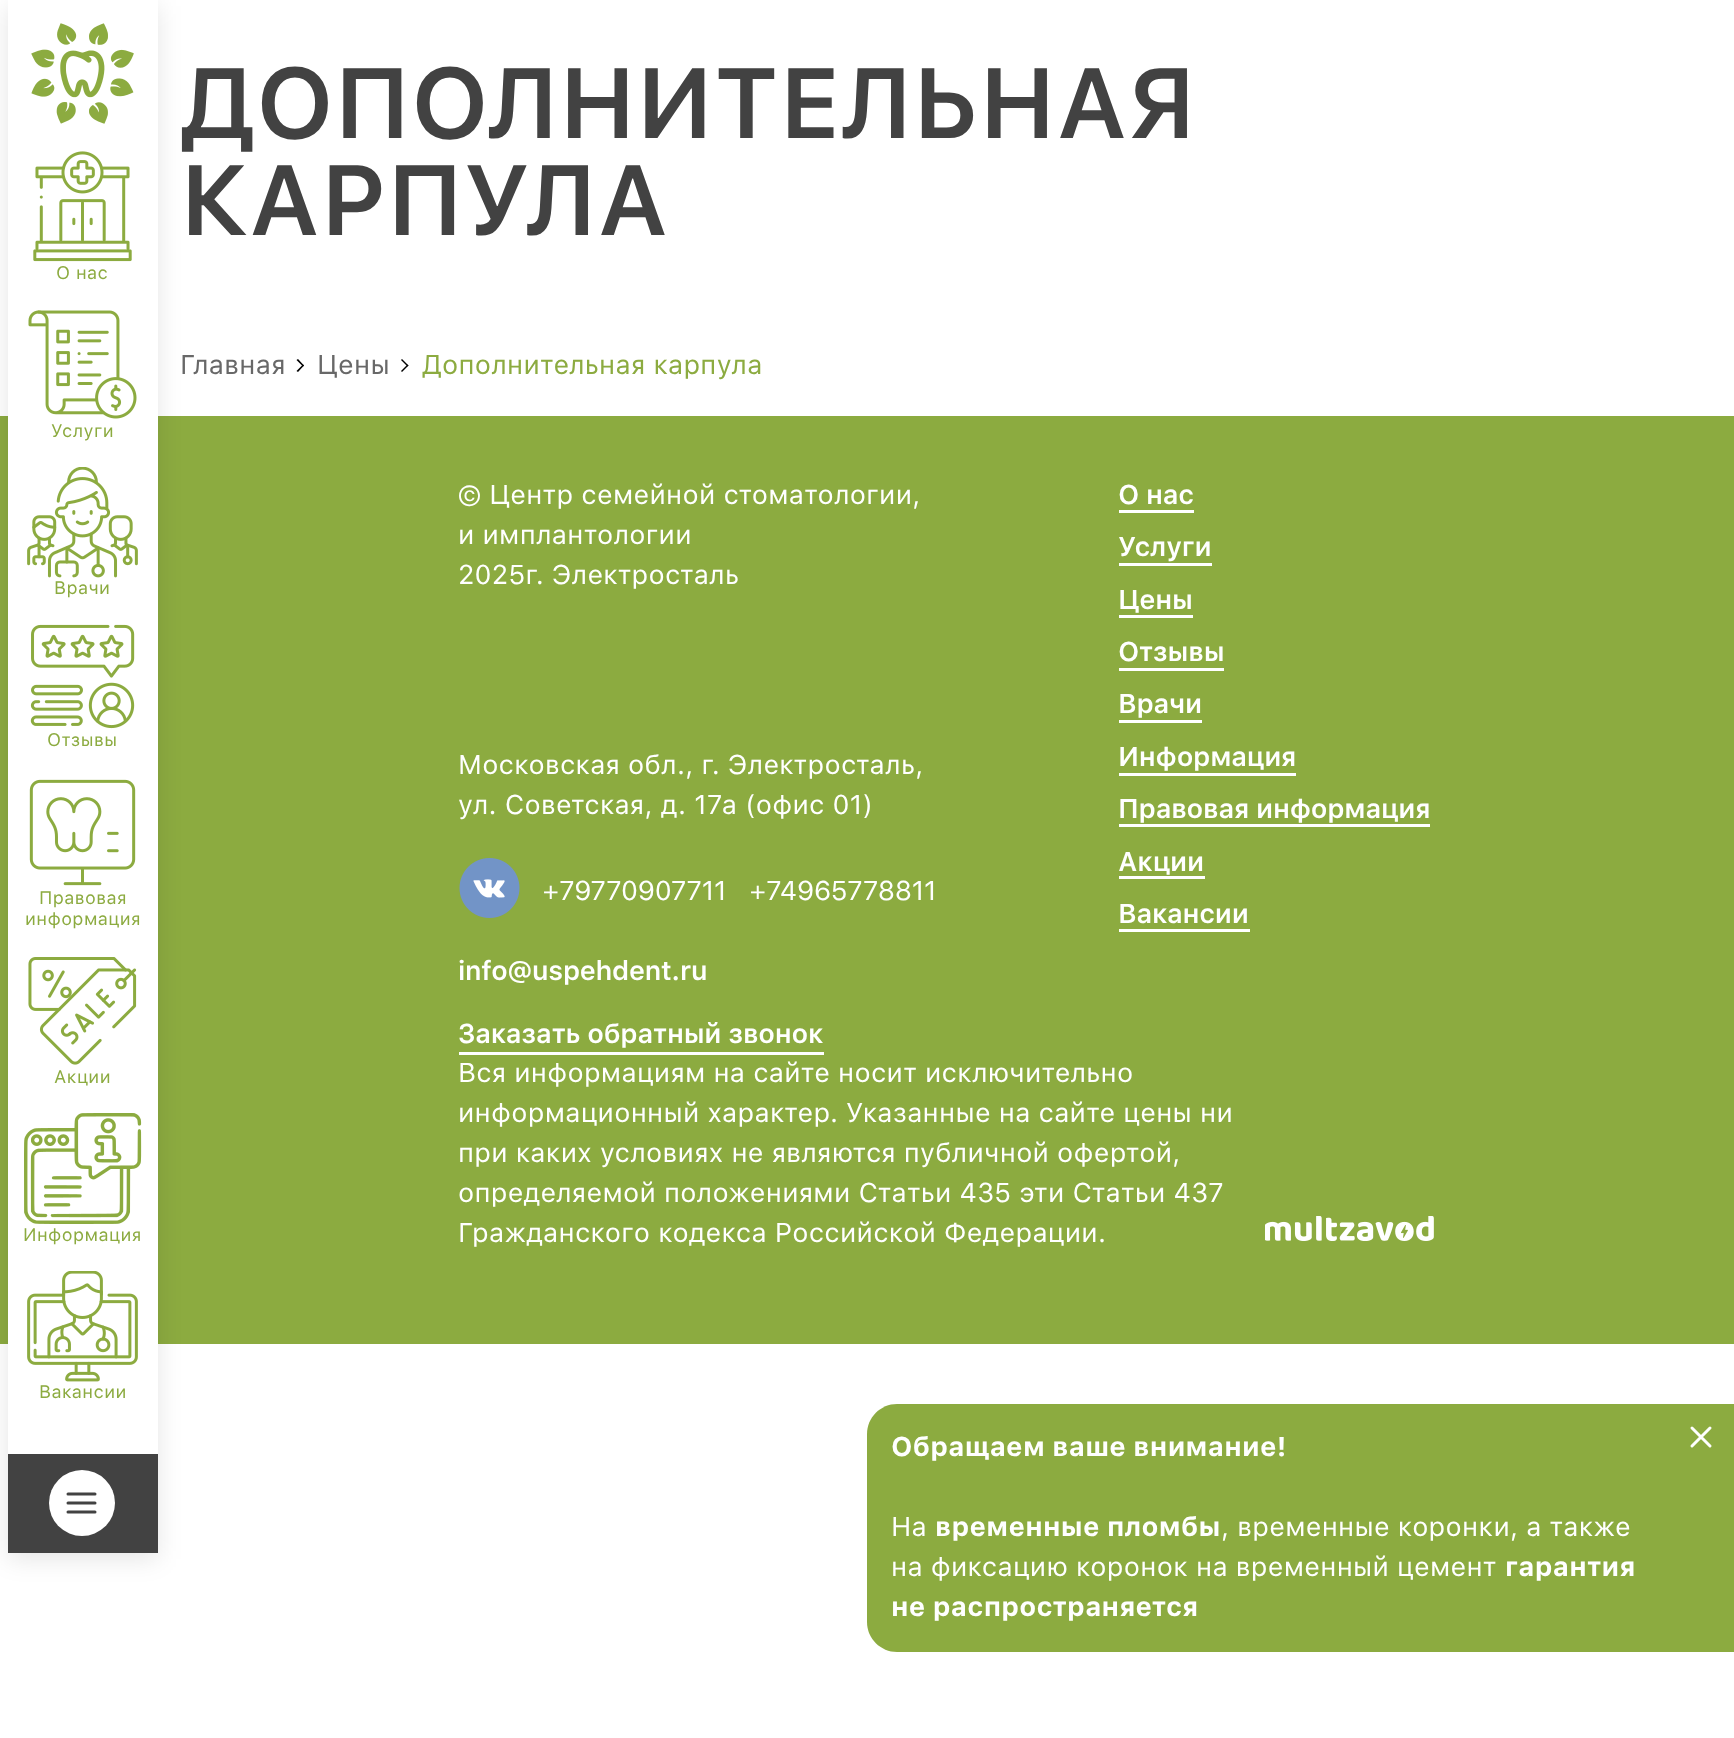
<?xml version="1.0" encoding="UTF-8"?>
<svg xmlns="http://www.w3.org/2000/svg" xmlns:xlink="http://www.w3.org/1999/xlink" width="1734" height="1738">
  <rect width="100%" height="100%" fill="#ffffff" />
  <rect y="416" width="1734" height="928" fill="#8cab40" />
  <rect x="8" y="6" width="150" height="1553" fill="#000000" fill-opacity="0.1" filter="blur(12px)" />
  <rect x="8" width="150" height="1454" fill="#ffffff" />
  <image x="31" y="23" width="103" height="101" xlink:href="image1.png" />
  <image x="33" y="151" width="99" height="111" xlink:href="image2.png" />
  <image x="28" y="310" width="109" height="109" xlink:href="image3.png" />
  <image x="27" y="467" width="111" height="111" xlink:href="image4.png" />
  <image x="30" y="624" width="105" height="105" xlink:href="image5.png" />
  <image x="29" y="779" width="107" height="107" xlink:href="image6.png" />
  <image x="28" y="957" width="109" height="108" xlink:href="image7.png" />
  <image x="24" y="1113" width="118" height="111" xlink:href="image8.png" />
  <image x="27" y="1271" width="111" height="111" xlink:href="image9.png" />
  <rect x="8" y="1454" width="150" height="99" fill="#424242" />
  <circle cx="82" cy="1503" r="33" fill="#ffffff" />
  <path d="M 68 1503 h 27 m -27 -9 h 27 m -27 18 h 27" fill="none" stroke="#424242" stroke-width="3" stroke-linecap="round" stroke-linejoin="round" />
  <path d="M 298 359 l 6 6.5 l -1 1 l -6.5 -6.5 z" fill="#000000" />
  <path d="M 303 364.5 l 1 1 l -6 6.5 l -1.5 -1 z" fill="#000000" />
  <path d="M 402 359 l 6.5 6.5 l -1 1 l -6.5 -6.5 z" fill="#000000" />
  <path d="M 407.5 364.5 l 1 1 l -6.5 6.5 l -1 -1 z" fill="#000000" />
  <image x="459" y="858" width="61" height="60" xlink:href="image10.png" />
  <rect x="459" y="1052" width="365" height="3" fill="#ffffff" />
  <rect x="1119" y="510" width="75" height="3" fill="#ffffff" />
  <rect x="1119" y="563" width="93" height="3" fill="#ffffff" />
  <rect x="1119" y="615" width="74" height="3" fill="#ffffff" />
  <rect x="1119" y="668" width="105" height="3" fill="#ffffff" />
  <rect x="1119" y="720" width="83" height="3" fill="#ffffff" />
  <rect x="1119" y="773" width="177" height="3" fill="#ffffff" />
  <rect x="1119" y="824" width="311" height="3" fill="#ffffff" />
  <rect x="1119" y="876" width="86" height="3" fill="#ffffff" />
  <rect x="1119" y="929" width="131" height="3" fill="#ffffff" />
  <image x="1265" y="1216" width="169" height="25" xlink:href="image11.png" />
  <path d="M 897 1404 h 837 v 248 h -837 c -16.5 0 -30 -13.5 -30 -30 v -188 c 0 -16.5 13.5 -30 30 -30 z" fill="#8cab40" />
  <path d="M 1710 1428 l -18 18 m 0 -18 l 18 18" fill="none" stroke="#ffffff" stroke-width="3" stroke-linecap="round" stroke-linejoin="round" />
  <text x="180" y="138" style="font-family: SF Pro Text; font-size: 99px; font-weight: 600; letter-spacing: 0.27px; fill: #424242">ДОПОЛНИТЕЛЬНАЯ</text>
  <text x="180" y="235" style="font-family: SF Pro Text; font-size: 99px; font-weight: 600; letter-spacing: 0.27px; fill: #424242">КАРПУЛА</text>
  <text x="56" y="279" style="font-family: SF Pro Text; font-size: 18px; letter-spacing: 0.4px; fill: #8cab40">О нас</text>
  <text x="51" y="437" style="font-family: SF Pro Text; font-size: 18px; letter-spacing: 0.4px; fill: #8cab40">Услуги</text>
  <text x="54" y="594" style="font-family: SF Pro Text; font-size: 18px; letter-spacing: 0.4px; fill: #8cab40">Врачи</text>
  <text x="47" y="746" style="font-family: SF Pro Text; font-size: 18px; letter-spacing: 0.4px; fill: #8cab40">Отзывы</text>
  <text x="39" y="904" style="font-family: SF Pro Text; font-size: 18px; letter-spacing: 0.4px; fill: #8cab40">Правовая</text>
  <text x="25" y="925" style="font-family: SF Pro Text; font-size: 18px; letter-spacing: 0.4px; fill: #8cab40">информация</text>
  <text x="54" y="1083" style="font-family: SF Pro Text; font-size: 18px; letter-spacing: 0.4px; fill: #8cab40">Акции</text>
  <text x="23" y="1241" style="font-family: SF Pro Text; font-size: 18px; letter-spacing: 0.4px; fill: #8cab40">Информация</text>
  <text x="39" y="1398" style="font-family: SF Pro Text; font-size: 18px; letter-spacing: 0.4px; fill: #8cab40">Вакансии</text>
  <text x="180" y="374" style="font-family: SF Pro Text; font-size: 27px; letter-spacing: 0.27px; fill: #686868">Главная</text>
  <text x="317" y="374" style="font-family: SF Pro Text; font-size: 27px; letter-spacing: 0.27px; fill: #686868">Цены</text>
  <text x="422" y="374" style="font-family: SF Pro Text; font-size: 27px; letter-spacing: 0.27px; fill: #8cab40">Дополнительная карпула</text>
  <text x="458" y="504" style="font-family: SF Pro Text; font-size: 27px; letter-spacing: 0.27px; fill: #ffffff">© Центр семейной стоматологии,</text>
  <text x="458" y="544" style="font-family: SF Pro Text; font-size: 27px; letter-spacing: 0.27px; fill: #ffffff">и имплантологии</text>
  <text x="458" y="584" style="font-family: SF Pro Text; font-size: 27px; letter-spacing: 0.27px; fill: #ffffff">2025г. Электросталь</text>
  <text x="458" y="774" style="font-family: SF Pro Text; font-size: 27px; letter-spacing: 0.27px; fill: #ffffff">Московская обл., г. Электросталь,</text>
  <text x="458" y="814" style="font-family: SF Pro Text; font-size: 27px; letter-spacing: 0.27px; fill: #ffffff">ул. Советская, д. 17а (офис 01)</text>
  <text x="542" y="900" style="font-family: SF Pro Text; font-size: 27px; letter-spacing: -0.25px; fill: #ffffff">+79770907711</text>
  <text x="749" y="900" style="font-family: SF Pro Text; font-size: 27px; letter-spacing: -0.25px; fill: #ffffff">+74965778811</text>
  <text x="458" y="980" style="font-family: SF Pro Text; font-size: 27px; font-weight: 600; letter-spacing: -0.25px; fill: #ffffff">info@uspehdent.ru</text>
  <text x="458" y="1043" style="font-family: SF Pro Text; font-size: 27px; font-weight: 600; letter-spacing: -0.25px; fill: #ffffff">Заказать обратный звонок</text>
  <text x="1118" y="504" style="font-family: SF Pro Text; font-size: 27px; font-weight: 600; letter-spacing: -0.25px; fill: #ffffff">О нас</text>
  <text x="1118" y="556" style="font-family: SF Pro Text; font-size: 27px; font-weight: 600; letter-spacing: -0.25px; fill: #ffffff">Услуги</text>
  <text x="1118" y="609" style="font-family: SF Pro Text; font-size: 27px; font-weight: 600; letter-spacing: -0.25px; fill: #ffffff">Цены</text>
  <text x="1118" y="661" style="font-family: SF Pro Text; font-size: 27px; font-weight: 600; letter-spacing: -0.25px; fill: #ffffff">Отзывы</text>
  <text x="1118" y="713" style="font-family: SF Pro Text; font-size: 27px; font-weight: 600; letter-spacing: -0.25px; fill: #ffffff">Врачи</text>
  <text x="1118" y="766" style="font-family: SF Pro Text; font-size: 27px; font-weight: 600; letter-spacing: -0.25px; fill: #ffffff">Информация</text>
  <text x="1118" y="818" style="font-family: SF Pro Text; font-size: 27px; font-weight: 600; letter-spacing: -0.25px; fill: #ffffff">Правовая информация</text>
  <text x="1118" y="871" style="font-family: SF Pro Text; font-size: 27px; font-weight: 600; letter-spacing: -0.25px; fill: #ffffff">Акции</text>
  <text x="1118" y="923" style="font-family: SF Pro Text; font-size: 27px; font-weight: 600; letter-spacing: -0.25px; fill: #ffffff">Вакансии</text>
  <text x="458" y="1082" style="font-family: SF Pro Text; font-size: 27px; letter-spacing: 0.27px; fill: #ffffff">Вся информациям на сайте носит исключительно</text>
  <text x="458" y="1122" style="font-family: SF Pro Text; font-size: 27px; letter-spacing: 0.27px; fill: #ffffff">информационный характер. Указанные на сайте цены ни</text>
  <text x="458" y="1162" style="font-family: SF Pro Text; font-size: 27px; letter-spacing: 0.27px; fill: #ffffff">при каких условиях не являются публичной офертой,</text>
  <text x="458" y="1202" style="font-family: SF Pro Text; font-size: 27px; letter-spacing: 0.27px; fill: #ffffff">определяемой положениями Статьи 435 эти Статьи 437</text>
  <text x="458" y="1242" style="font-family: SF Pro Text; font-size: 27px; letter-spacing: 0.27px; fill: #ffffff">Гражданского кодекса Российской Федерации.</text>
  <text x="891" y="1456" style="font-family: SF Pro Text; font-size: 27px; font-weight: bold; letter-spacing: 0.27px; fill: #ffffff">Обращаем ваше внимание!</text>
  <text x="891" y="1536" style="font-family: SF Pro Text; font-size: 27px; letter-spacing: 0.27px; fill: #ffffff">На</text>
  <text x="935" y="1536" style="font-family: SF Pro Text; font-size: 27px; font-weight: bold; letter-spacing: 0.27px; fill: #ffffff">временные пломбы</text>
  <text x="1221" y="1536" style="font-family: SF Pro Text; font-size: 27px; letter-spacing: 0.27px; fill: #ffffff">, временные коронки, а также</text>
  <text x="891" y="1576" style="font-family: SF Pro Text; font-size: 27px; letter-spacing: 0.27px; fill: #ffffff">на фиксацию коронок на временный цемент</text>
  <text x="1505" y="1576" style="font-family: SF Pro Text; font-size: 27px; font-weight: bold; letter-spacing: 0.27px; fill: #ffffff">гарантия</text>
  <text x="891" y="1616" style="font-family: SF Pro Text; font-size: 27px; font-weight: bold; letter-spacing: 0.27px; fill: #ffffff">не распространяется</text>
</svg>
